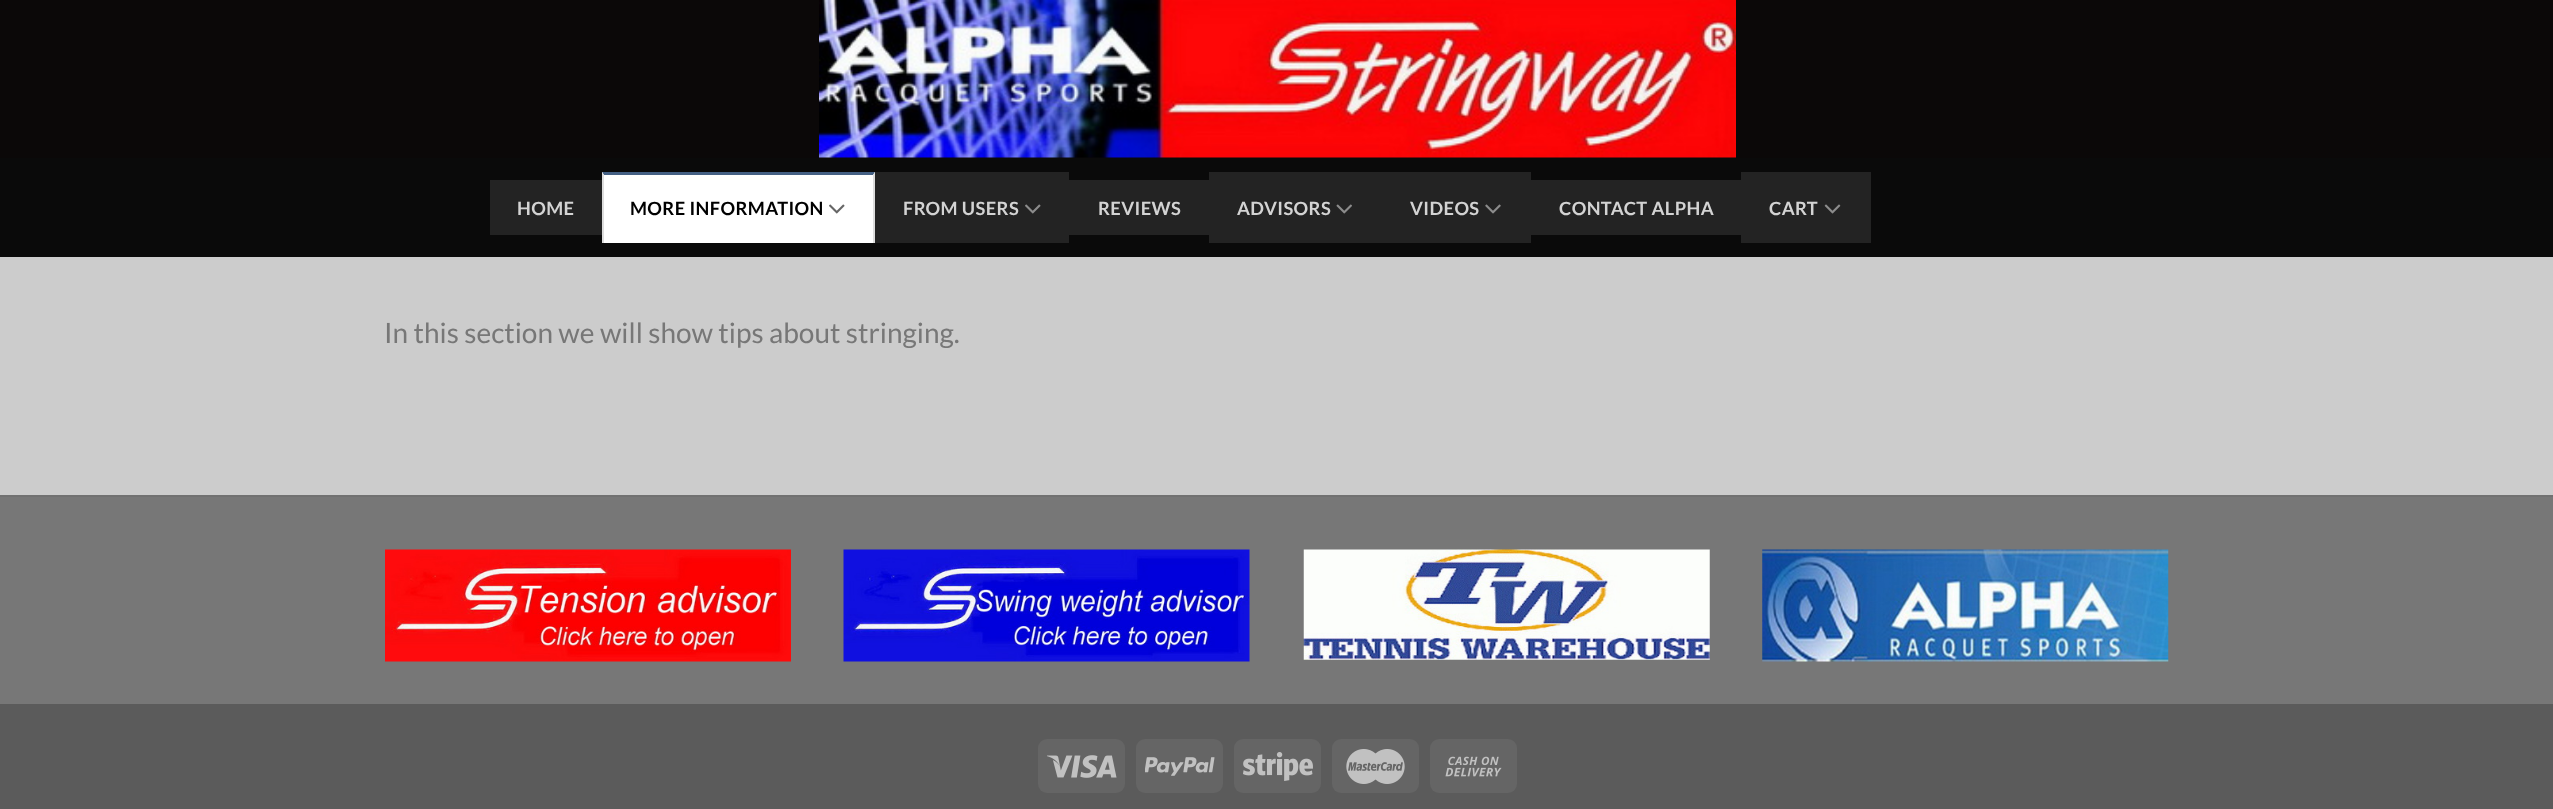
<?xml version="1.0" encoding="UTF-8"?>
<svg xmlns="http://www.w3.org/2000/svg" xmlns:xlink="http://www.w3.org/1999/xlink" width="2553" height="809">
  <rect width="100%" height="100%" fill="#cccccc" />
  <rect width="2553" height="158" fill="#0b0808" />
  <image x="819" y="0" width="917" height="158" xlink:href="image1.png" />
  <rect y="158" width="2553" height="99" fill="#0a0a0a" />
  <rect x="490" y="180" width="112" height="55" fill="#232323" />
  <rect x="602" y="172" width="273" height="71" fill="#ffffff" />
  <path d="M 602 172 h 273 l -2 3 h -269 z" fill="#446084" />
  <path d="M 875 172 v 71 h -2 v -68 z" fill="#dddddd" />
  <path d="M 602 243 v -71 l 2 3 v 68 z" fill="#dddddd" />
  <image x="829" y="204" width="16" height="10" xlink:href="image2.png" />
  <rect x="875" y="172" width="194" height="71" fill="#232323" />
  <image x="1025" y="204" width="16" height="10" xlink:href="image3.png" />
  <rect x="1069" y="180" width="140" height="55" fill="#232323" />
  <rect x="1209" y="172" width="322" height="71" fill="#232323" />
  <image x="1336" y="204" width="16" height="10" xlink:href="image4.png" />
  <image x="1485" y="204" width="16" height="10" xlink:href="image5.png" />
  <rect x="1531" y="180" width="210" height="55" fill="#232323" />
  <rect x="1741" y="172" width="130" height="71" fill="#232323" />
  <image x="1824" y="204" width="17" height="10" xlink:href="image6.png" />
  <rect y="497" width="2553" height="207" fill="#777777" />
  <rect y="495" width="2553" height="2" fill="#717171" />
  <image x="385" y="549" width="406" height="113" xlink:href="image7.png" />
  <image x="843" y="549" width="407" height="113" xlink:href="image8.png" />
  <image x="1303" y="549" width="407" height="111" xlink:href="image9.png" />
  <image x="1762" y="549" width="407" height="113" xlink:href="image10.png" />
  <rect y="704" width="2553" height="105" fill="#5b5b5b" />
  <rect x="1038" y="739" width="87" height="54" rx="9" fill="#656565" />
  <image x="1047" y="755" width="70" height="23" xlink:href="image11.png" />
  <rect x="1136" y="739" width="87" height="54" rx="9" fill="#656565" />
  <image x="1145" y="757" width="70" height="19" xlink:href="image12.png" />
  <rect x="1234" y="739" width="87" height="54" rx="9" fill="#656565" />
  <image x="1243" y="752" width="70" height="29" xlink:href="image13.png" />
  <rect x="1332" y="739" width="87" height="54" rx="9" fill="#656565" />
  <image x="1346" y="749" width="59" height="35" xlink:href="image14.png" />
  <rect x="1430" y="739" width="87" height="54" rx="9" fill="#656565" />
  <image x="1445" y="756" width="57" height="21" xlink:href="image15.png" />
  <text x="517" y="215" style="font-family: Lato; font-size: 18.25px; font-weight: bold; letter-spacing: 0.4px; fill: #d3d3d3">HOME</text>
  <text x="630" y="215" style="font-family: Lato; font-size: 18.25px; font-weight: bold; letter-spacing: 0.4px; fill: #000000">MORE INFORMATION</text>
  <text x="903" y="215" style="font-family: Lato; font-size: 18.25px; font-weight: bold; letter-spacing: 0.4px; fill: #d3d3d3">FROM USERS</text>
  <text x="1098" y="215" style="font-family: Lato; font-size: 18.25px; font-weight: bold; letter-spacing: 0.4px; fill: #d3d3d3">REVIEWS</text>
  <text x="1237" y="215" style="font-family: Lato; font-size: 18.25px; font-weight: bold; letter-spacing: 0.4px; fill: #d3d3d3">ADVISORS</text>
  <text x="1410" y="215" style="font-family: Lato; font-size: 18.25px; font-weight: bold; letter-spacing: 0.4px; fill: #d3d3d3">VIDEOS</text>
  <text x="1559" y="215" style="font-family: Lato; font-size: 18.25px; font-weight: bold; letter-spacing: 0.4px; fill: #d3d3d3">CONTACT ALPHA</text>
  <text x="1769" y="215" style="font-family: Lato; font-size: 18.25px; font-weight: bold; letter-spacing: 0.4px; fill: #d3d3d3">CART</text>
  <text x="384" y="343" style="font-family: Lato; font-size: 28px; fill: #777777">In this section we will show tips about stringing.</text>
</svg>
